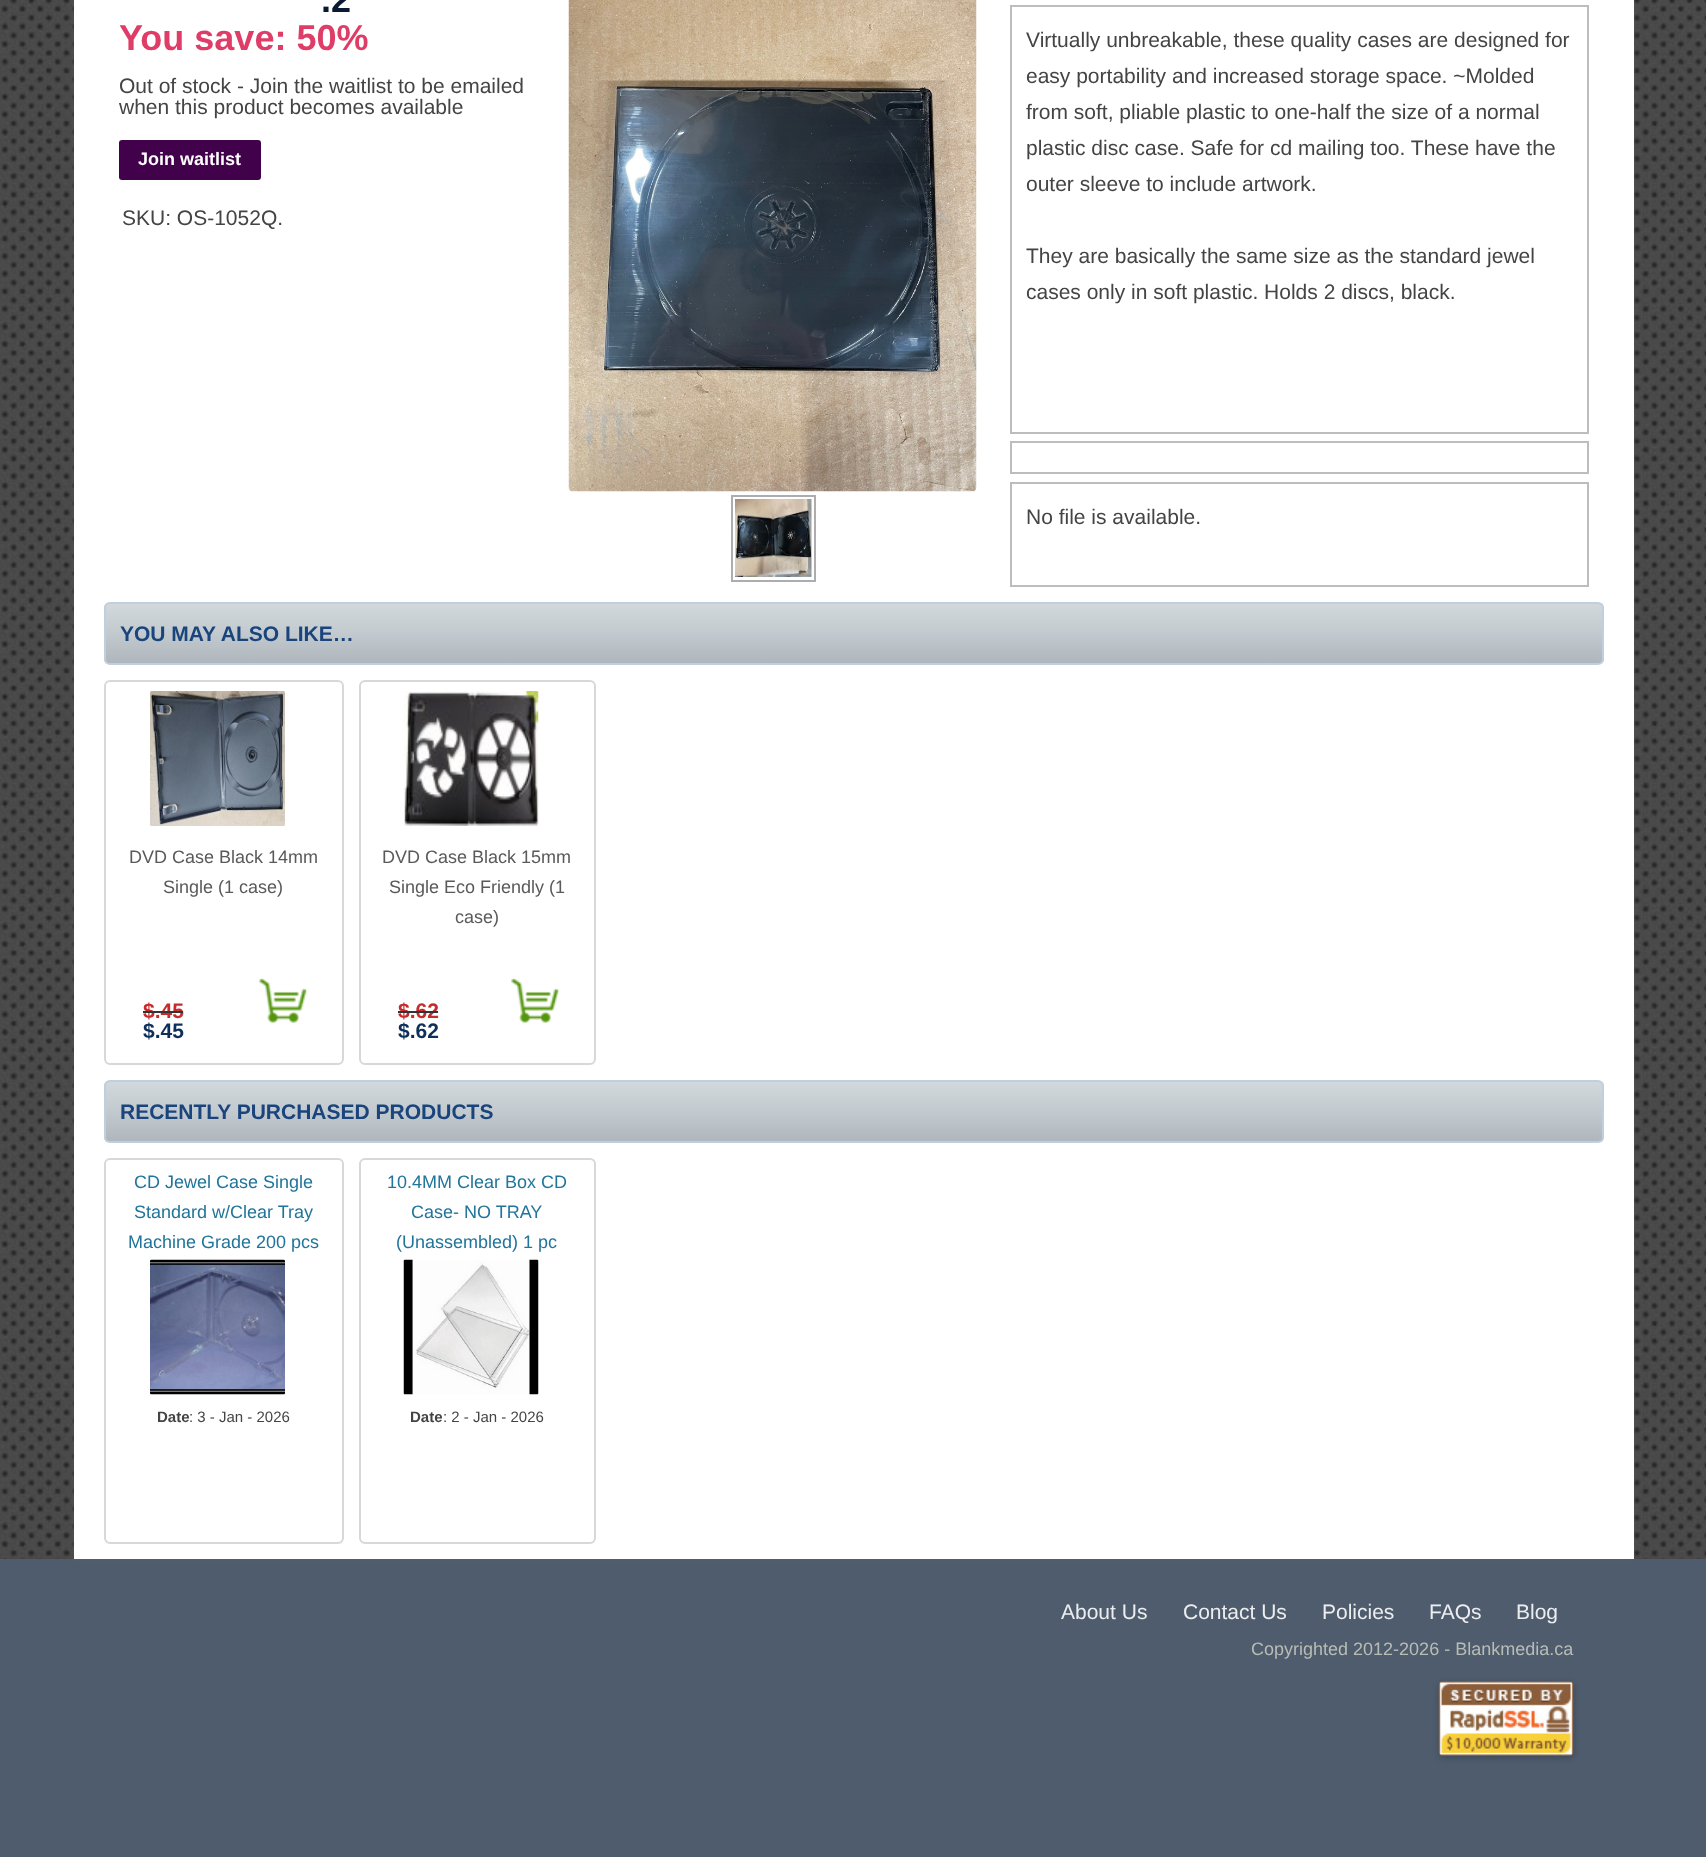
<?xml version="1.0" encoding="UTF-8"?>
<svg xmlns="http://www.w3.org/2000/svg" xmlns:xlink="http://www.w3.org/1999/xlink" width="1706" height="1857">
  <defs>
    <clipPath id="clip1"><rect x="104" y="602" width="1500" height="63" rx="6" /></clipPath>
    <linearGradient id="g1" gradientUnits="userSpaceOnUse" x1="854" y1="603" x2="854" y2="663"><stop offset="0" stop-color="#d2d9dc" /><stop offset="0.5" stop-color="#c3cacf" /><stop offset="1" stop-color="#aeb5bc" /></linearGradient>
    <clipPath id="clip2"><rect x="104" y="1080" width="1500" height="63" rx="6" /></clipPath>
    <linearGradient id="g2" gradientUnits="userSpaceOnUse" x1="854" y1="1081" x2="854" y2="1142"><stop offset="0" stop-color="#d2d9dc" /><stop offset="0.5" stop-color="#c3cacf" /><stop offset="1" stop-color="#aeb5bc" /></linearGradient>
  </defs>
  <rect width="100%" height="100%" fill="#ffffff" />
  <image x="0" y="0" width="1706" height="1559" xlink:href="image1.png" />
  <rect y="1559" width="1706" height="298" fill="#4e5c6d" />
  <rect x="74" y="-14" width="1560" height="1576" fill="#646464" fill-opacity="0.3" filter="blur(4.5px)" />
  <rect x="74" width="1560" height="1559" fill="#ffffff" />
  <rect x="120" y="141" width="140" height="38" rx="2" fill="#42024b" stroke="#42024b" stroke-width="2" />
  <image x="568" y="0" width="409" height="492" xlink:href="image2.png" />
  <rect x="732" y="496" width="83" height="85" fill="none" stroke="#adadad" stroke-width="2" />
  <image x="735" y="499" width="77" height="78" xlink:href="image3.png" />
  <rect x="1011" y="6" width="577" height="427" fill="none" stroke="#bebdbd" stroke-width="2" />
  <rect x="1011" y="442" width="577" height="31" fill="none" stroke="#bebdbd" stroke-width="2" />
  <rect x="1011" y="483" width="577" height="103" fill="none" stroke="#bebdbd" stroke-width="2" />
  <g clip-path="url(#clip1)">
    <rect x="104" y="603" width="1500" height="60" fill="url(#g1)" />
  </g>
  <rect x="105" y="603" width="1498" height="61" rx="5" fill="none" stroke="#c0cfde" stroke-width="2" />
  <rect x="105" y="681" width="238" height="383" rx="5" fill="none" stroke="#d8d8d8" stroke-width="2" />
  <image x="150" y="691" width="135" height="135" xlink:href="image4.png" />
  <image x="259" y="978" width="48" height="45" xlink:href="image5.png" />
  <rect x="360" y="681" width="235" height="383" rx="5" fill="none" stroke="#d8d8d8" stroke-width="2" />
  <image x="403" y="691" width="136" height="135" xlink:href="image6.png" />
  <image x="511" y="978" width="48" height="45" xlink:href="image5.png" />
  <g clip-path="url(#clip2)">
    <rect x="104" y="1082" width="1500" height="60" fill="url(#g2)" />
  </g>
  <rect x="105" y="1081" width="1498" height="61" rx="5" fill="none" stroke="#c0cfde" stroke-width="2" />
  <rect x="105" y="1159" width="238" height="384" rx="5" fill="none" stroke="#d8d8d8" stroke-width="2" />
  <image x="150" y="1259" width="135" height="136" xlink:href="image7.png" />
  <rect x="360" y="1159" width="235" height="384" rx="5" fill="none" stroke="#d8d8d8" stroke-width="2" />
  <image x="403" y="1259" width="136" height="136" xlink:href="image8.png" />
  <rect x="1439" y="1683" width="135" height="75" rx="5" fill="#000000" fill-opacity="0.2" filter="blur(3px)" />
  <image x="1438" y="1681" width="136" height="75" xlink:href="image9.png" />
  <text x="321" y="12" style="font-family: Liberation Sans; font-size: 36px; font-weight: bold; fill: #071a32">.2</text>
  <text x="119" y="50" style="font-family: Liberation Sans; font-size: 36px; font-weight: bold; fill: #df3d67">You save: 50%</text>
  <text x="119" y="93" style="font-family: Liberation Sans; font-size: 21px; fill: #444444">Out of stock - Join the waitlist to be emailed</text>
  <text x="119" y="114" style="font-family: Liberation Sans; font-size: 21px; fill: #444444">when this product becomes available</text>
  <text x="138" y="165" style="font-family: Liberation Sans; font-size: 18px; font-weight: bold; fill: #ffffff">Join waitlist</text>
  <text x="122" y="225" style="font-family: Liberation Sans; font-size: 21px; fill: #444444">SKU: OS-1052Q.</text>
  <text x="1026" y="47" style="font-family: Liberation Sans; font-size: 21px; fill: #444444">Virtually unbreakable, these quality cases are designed for</text>
  <text x="1026" y="83" style="font-family: Liberation Sans; font-size: 21px; fill: #444444">easy portability and increased storage space. ~Molded</text>
  <text x="1026" y="119" style="font-family: Liberation Sans; font-size: 21px; fill: #444444">from soft, pliable plastic to one-half the size of a normal</text>
  <text x="1026" y="155" style="font-family: Liberation Sans; font-size: 21px; fill: #444444">plastic disc case. Safe for cd mailing too. These have the</text>
  <text x="1026" y="191" style="font-family: Liberation Sans; font-size: 21px; fill: #444444">outer sleeve to include artwork.</text>
  <text x="1026" y="263" style="font-family: Liberation Sans; font-size: 21px; fill: #444444">They are basically the same size as the standard jewel</text>
  <text x="1026" y="299" style="font-family: Liberation Sans; font-size: 21px; fill: #444444">cases only in soft plastic. Holds 2 discs, black.</text>
  <text x="1026" y="524" style="font-family: Liberation Sans; font-size: 21px; fill: #444444">No file is available.</text>
  <text x="120" y="641" style="font-family: Liberation Sans; font-size: 21px; font-weight: bold; fill: #1a457c">YOU MAY ALSO LIKE…</text>
  <text x="129" y="863" style="font-family: Liberation Sans; font-size: 18px; fill: #5a5a5a">DVD Case Black 14mm</text>
  <text x="163" y="893" style="font-family: Liberation Sans; font-size: 18px; fill: #5a5a5a">Single (1 case)</text>
  <text x="143" y="1018" style="font-family: Liberation Sans; font-size: 21px; font-weight: bold; fill: #c82b2c">$.45</text>
  <rect x="143" y="1011" width="40" height="2" fill="#333333" />
  <text x="143" y="1038" style="font-family: Liberation Sans; font-size: 21px; font-weight: bold; fill: #0c2f5c">$.45</text>
  <text x="382" y="863" style="font-family: Liberation Sans; font-size: 18px; fill: #5a5a5a">DVD Case Black 15mm</text>
  <text x="389" y="893" style="font-family: Liberation Sans; font-size: 18px; fill: #5a5a5a">Single Eco Friendly (1</text>
  <text x="455" y="923" style="font-family: Liberation Sans; font-size: 18px; fill: #5a5a5a">case)</text>
  <text x="398" y="1018" style="font-family: Liberation Sans; font-size: 21px; font-weight: bold; fill: #c82b2c">$.62</text>
  <rect x="398" y="1011" width="40" height="2" fill="#333333" />
  <text x="398" y="1038" style="font-family: Liberation Sans; font-size: 21px; font-weight: bold; fill: #0c2f5c">$.62</text>
  <text x="120" y="1119" style="font-family: Liberation Sans; font-size: 21px; font-weight: bold; fill: #1a457c">RECENTLY PURCHASED PRODUCTS</text>
  <text x="134" y="1188" style="font-family: Liberation Sans; font-size: 18px; fill: #21759b">CD Jewel Case Single</text>
  <text x="134" y="1218" style="font-family: Liberation Sans; font-size: 18px; fill: #21759b">Standard w/Clear Tray</text>
  <text x="128" y="1248" style="font-family: Liberation Sans; font-size: 18px; fill: #21759b">Machine Grade 200 pcs</text>
  <text x="157" y="1422" style="font-family: Liberation Sans; font-size: 15px; font-weight: bold; fill: #444444">Date</text>
  <text x="189" y="1422" style="font-family: Liberation Sans; font-size: 15px; fill: #444444">: 3 - Jan - 2026</text>
  <text x="387" y="1188" style="font-family: Liberation Sans; font-size: 18px; fill: #21759b">10.4MM Clear Box CD</text>
  <text x="411" y="1218" style="font-family: Liberation Sans; font-size: 18px; fill: #21759b">Case- NO TRAY</text>
  <text x="396" y="1248" style="font-family: Liberation Sans; font-size: 18px; fill: #21759b">(Unassembled) 1 pc</text>
  <text x="410" y="1422" style="font-family: Liberation Sans; font-size: 15px; font-weight: bold; fill: #444444">Date</text>
  <text x="443" y="1422" style="font-family: Liberation Sans; font-size: 15px; fill: #444444">: 2 - Jan - 2026</text>
  <text x="1061" y="1619" style="font-family: Liberation Sans; font-size: 21px; fill: #ecedef">About Us</text>
  <text x="1183" y="1619" style="font-family: Liberation Sans; font-size: 21px; fill: #ecedef">Contact Us</text>
  <text x="1322" y="1619" style="font-family: Liberation Sans; font-size: 21px; fill: #ecedef">Policies</text>
  <text x="1429" y="1619" style="font-family: Liberation Sans; font-size: 21px; fill: #ecedef">FAQs</text>
  <text x="1516" y="1619" style="font-family: Liberation Sans; font-size: 21px; fill: #ecedef">Blog</text>
  <text x="1251" y="1655" style="font-family: Liberation Sans; font-size: 18px; fill: #b9bcb5">Copyrighted 2012-2026 - Blankmedia.ca</text>
</svg>
